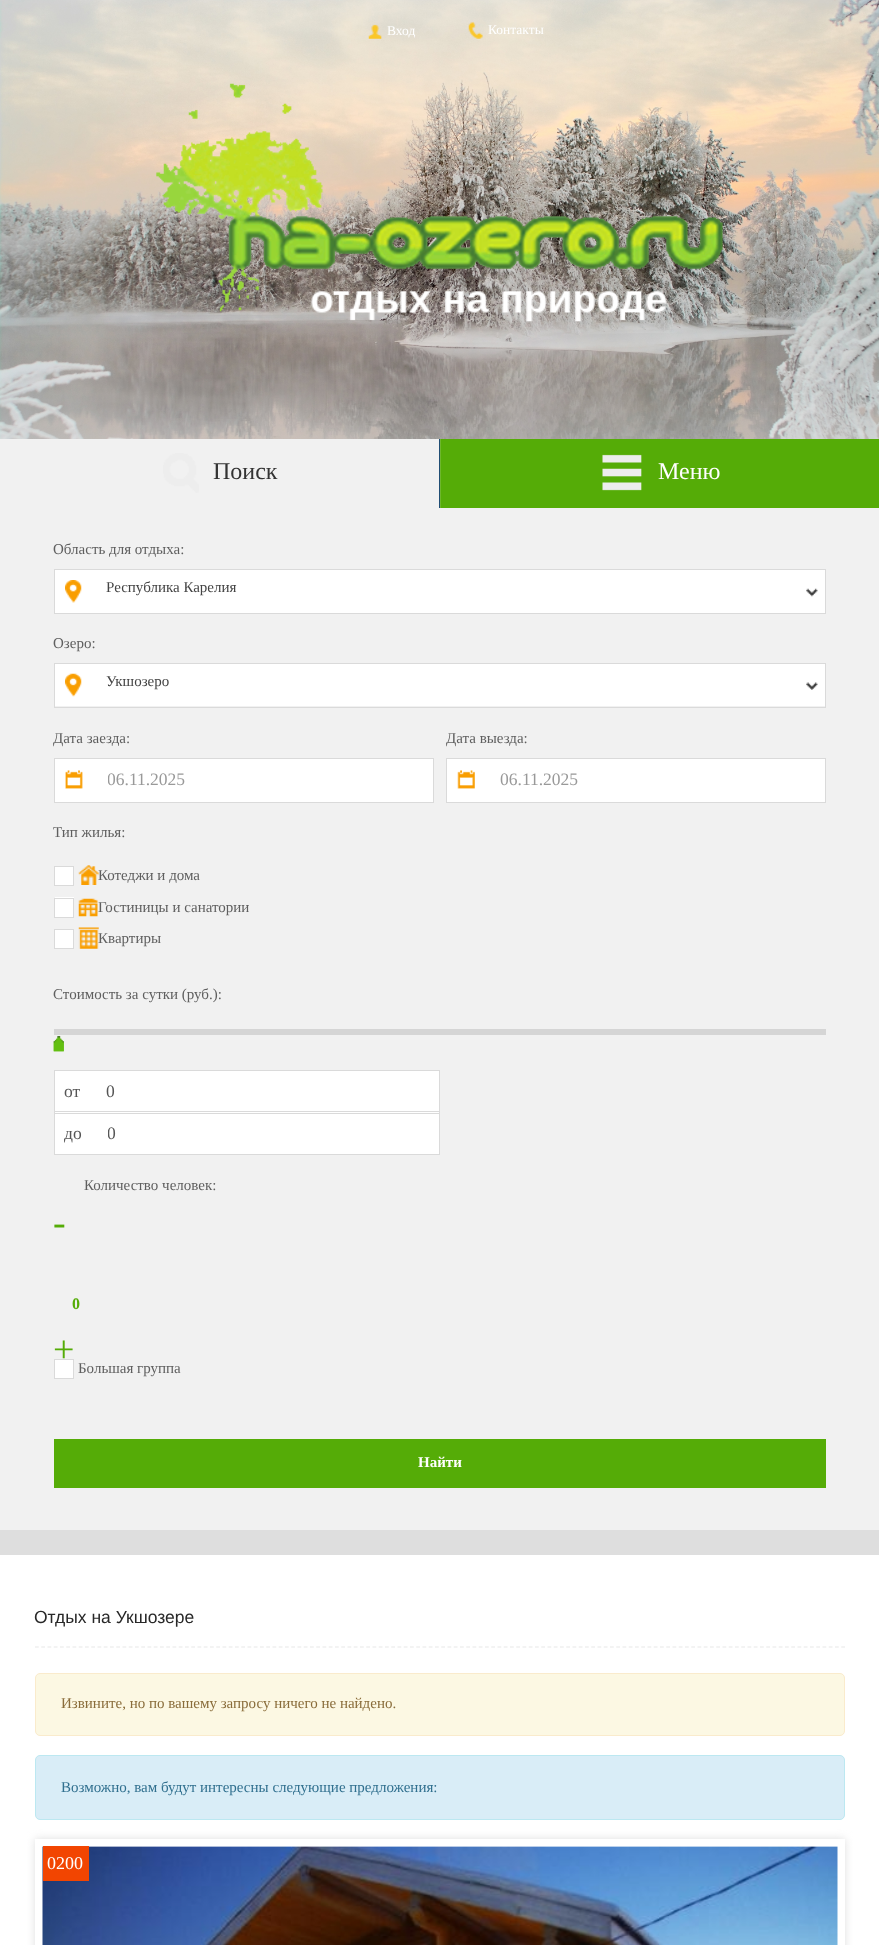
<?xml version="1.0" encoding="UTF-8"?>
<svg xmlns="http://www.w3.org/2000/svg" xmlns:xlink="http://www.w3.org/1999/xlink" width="879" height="1945">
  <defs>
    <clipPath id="clip1"><path d="M 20 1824 h 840 v 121 h -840 z m 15 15 h 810 v 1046 h -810 z" clip-rule="evenodd" /></clipPath>
    <clipPath id="clip2"><rect x="108" y="770" width="347" height="20" /></clipPath>
    <clipPath id="clip3"><rect x="108" y="1124" width="316" height="20" /></clipPath>
  </defs>
  <rect width="100%" height="100%" fill="#dedede" />
  <image x="0" y="0" width="879" height="439" xlink:href="image1.png" />
  <image x="368" y="24" width="14" height="15" xlink:href="image2.png" />
  <image x="468" y="22" width="15" height="17" xlink:href="image3.png" />
  <image x="156" y="83" width="567" height="239" xlink:href="image4.png" />
  <rect y="439" width="439" height="69" fill="#f1f1f1" />
  <rect x="439" y="439" width="1" height="69" fill="#204d74" />
  <image x="163" y="453" width="36" height="40" xlink:href="image5.png" />
  <rect x="441" y="439" width="438" height="69" fill="#55ac07" />
  <rect x="440" y="439" width="1" height="69" fill="#6eb82c" />
  <image x="602" y="454" width="40" height="37" xlink:href="image6.png" />
  <rect y="508" width="879" height="1022" fill="#f1f1f1" />
  <rect x="54.5" y="569.5" width="771" height="44" fill="none" stroke="#dadada" />
  <rect x="55" y="570" width="770" height="43" fill="#ffffff" />
  <image x="65" y="580" width="17" height="23" xlink:href="image7.png" />
  <image x="806" y="588" width="12" height="9" xlink:href="image8.png" />
  <rect x="54.5" y="663.5" width="771" height="44" fill="none" stroke="#dadada" />
  <rect x="55" y="664" width="770" height="42" fill="#ffffff" />
  <image x="65" y="673" width="17" height="24" xlink:href="image9.png" />
  <image x="806" y="682" width="12" height="8" xlink:href="image10.png" />
  <rect x="54.5" y="758.5" width="379" height="44" fill="#ffffff" stroke="#dadada" />
  <image x="65" y="770" width="18" height="19" xlink:href="image11.png" />
  <rect x="446.5" y="758.5" width="379" height="44" fill="#ffffff" stroke="#dadada" />
  <image x="457" y="770" width="18" height="19" xlink:href="image12.png" />
  <rect x="54.5" y="866.5" width="19" height="19" fill="#ffffff" stroke="#dadada" />
  <image x="78" y="865" width="21" height="20" xlink:href="image13.png" />
  <rect x="55" y="897" width="19" height="20" fill="#ffffff" />
  <rect x="54.5" y="898.5" width="19" height="19" fill="none" stroke="#dadada" />
  <image x="78" y="898" width="20" height="19" xlink:href="image14.png" />
  <rect x="54.5" y="929.5" width="19" height="19" fill="#ffffff" stroke="#dadada" />
  <image x="78" y="927" width="21" height="22" xlink:href="image15.png" />
  <rect x="54" y="1029" width="772" height="6" fill="#d5d5d5" />
  <image x="53" y="1036" width="11" height="16" xlink:href="image16.png" />
  <image x="53" y="1036" width="11" height="16" xlink:href="image17.png" />
  <rect x="55" y="1071" width="384" height="42" fill="#ffffff" />
  <rect x="54" y="1070" width="386" height="1" fill="#dadada" />
  <rect x="54" y="1111" width="37" height="1" fill="#dadada" />
  <rect x="54" y="1070" width="1" height="43" fill="#dadada" />
  <rect x="54" y="1113" width="386" height="1" fill="#dadada" />
  <rect x="439" y="1070" width="1" height="85" fill="#dadada" />
  <rect x="91" y="1111" width="349" height="1" fill="#dadada" />
  <rect x="55" y="1114" width="384" height="40" fill="#ffffff" />
  <rect x="54" y="1154" width="39" height="1" fill="#dadada" />
  <rect x="54" y="1113" width="1" height="42" fill="#dadada" />
  <rect x="93" y="1154" width="347" height="1" fill="#dadada" />
  <rect x="54.5" y="1359.5" width="19" height="19" fill="#ffffff" stroke="#dadada" />
  <rect x="54" y="1439" width="772" height="49" fill="#55ac07" />
  <rect y="1555" width="879" height="390" fill="#ffffff" />
  <path d="M 35 1647 h 810" fill="none" stroke="#e8e8e8" stroke-width="1.2" stroke-dasharray="3.75 2.5" />
  <rect x="35.5" y="1673.5" width="809" height="62" rx="4.5" fill="#fcf8e3" stroke="#faebcc" />
  <rect x="35.5" y="1755.5" width="809" height="64" rx="4.5" fill="#d9edf7" stroke="#bce8f1" />
  <g clip-path="url(#clip1)">
    <rect x="35" y="1839" width="810" height="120" fill="#dedede" filter="blur(4.5px)" />
  </g>
  <image x="42" y="1846" width="796" height="99" xlink:href="image18.png" />
  <rect x="43" y="1846" width="46" height="35" fill="#f24501" />
  <text x="387" y="35" style="font-family: Liberation Serif; font-size: 13.5px; fill: #ffffff">Вход</text>
  <text x="488" y="34" style="font-family: Liberation Serif; font-size: 13.5px; fill: #ffffff">Контакты</text>
  <text x="213" y="479" style="font-family: Liberation Serif; font-size: 24px; fill: #333333">Поиск</text>
  <text x="658" y="479" style="font-family: Liberation Serif; font-size: 24px; fill: #ffffff">Меню</text>
  <text x="53" y="554" style="font-family: Liberation Serif; font-size: 15px; fill: #5f5f5f">Область для отдыха:</text>
  <text x="106" y="592" style="font-family: Liberation Serif; font-size: 15px; fill: #444444">Республика Карелия</text>
  <text x="53" y="648" style="font-family: Liberation Serif; font-size: 15px; fill: #5f5f5f">Озеро:</text>
  <text x="106" y="686" style="font-family: Liberation Serif; font-size: 15px; fill: #444444">Укшозеро</text>
  <text x="53" y="743" style="font-family: Liberation Serif; font-size: 15px; fill: #5f5f5f">Дата заезда:</text>
  <g clip-path="url(#clip2)">
    <text x="107" y="785" style="font-family: Liberation Serif; font-size: 17.5px; fill: #999999">06.11.2025</text>
  </g>
  <text x="446" y="743" style="font-family: Liberation Serif; font-size: 15px; fill: #5f5f5f">Дата выезда:</text>
  <text x="500" y="785" style="font-family: Liberation Serif; font-size: 17.5px; fill: #999999">06.11.2025</text>
  <text x="53" y="837" style="font-family: Liberation Serif; font-size: 15px; fill: #5f5f5f">Тип жилья:</text>
  <text x="98" y="880" style="font-family: Liberation Serif; font-size: 15px; fill: #5f5f5f">Котеджи и дома</text>
  <text x="98" y="912" style="font-family: Liberation Serif; font-size: 15px; fill: #5f5f5f">Гостиницы и санатории</text>
  <text x="98" y="943" style="font-family: Liberation Serif; font-size: 15px; fill: #5f5f5f">Квартиры</text>
  <text x="53" y="999" style="font-family: Liberation Serif; font-size: 15px; fill: #5f5f5f">Стоимость за сутки (руб.):</text>
  <text x="64" y="1097" style="font-family: Liberation Serif; font-size: 17.5px; fill: #555555">от</text>
  <text x="106" y="1097" style="font-family: Liberation Serif; font-size: 17.5px; fill: #555555">0</text>
  <text x="64" y="1139" style="font-family: Liberation Serif; font-size: 17.5px; fill: #555555">до</text>
  <g clip-path="url(#clip3)">
    <text x="107" y="1139" style="font-family: Liberation Serif; font-size: 17.5px; fill: #555555">0</text>
  </g>
  <text x="84" y="1190" style="font-family: Liberation Serif; font-size: 15px; fill: #5f5f5f">Количество человек:</text>
  <text x="53" y="1235" style="font-family: Liberation Serif; font-size: 38px; fill: #55ac07">-</text>
  <text x="72" y="1309" style="font-family: Liberation Serif; font-size: 16px; font-weight: bold; fill: #55ac07">0</text>
  <text x="53" y="1362" style="font-family: Liberation Serif; font-size: 38px; fill: #55ac07">+</text>
  <text x="78" y="1373" style="font-family: Liberation Serif; font-size: 15px; fill: #5f5f5f">Большая группа</text>
  <text x="418" y="1467" style="font-family: Liberation Serif; font-size: 15px; font-weight: bold; fill: #ffffff">Найти</text>
  <text x="34" y="1623" style="font-family: Liberation Sans; font-size: 17.5px; fill: #282828">Отдых на Укшозере</text>
  <text x="61" y="1708" style="font-family: Liberation Serif; font-size: 15px; fill: #8a6d3b">Извините, но по вашему запросу ничего не найдено.</text>
  <text x="61" y="1792" style="font-family: Liberation Serif; font-size: 15px; fill: #31708f">Возможно, вам будут интересны следующие предложения:</text>
  <text x="47" y="1869" style="font-family: Liberation Serif; font-size: 18px; fill: #ffffff">0200</text>
</svg>
